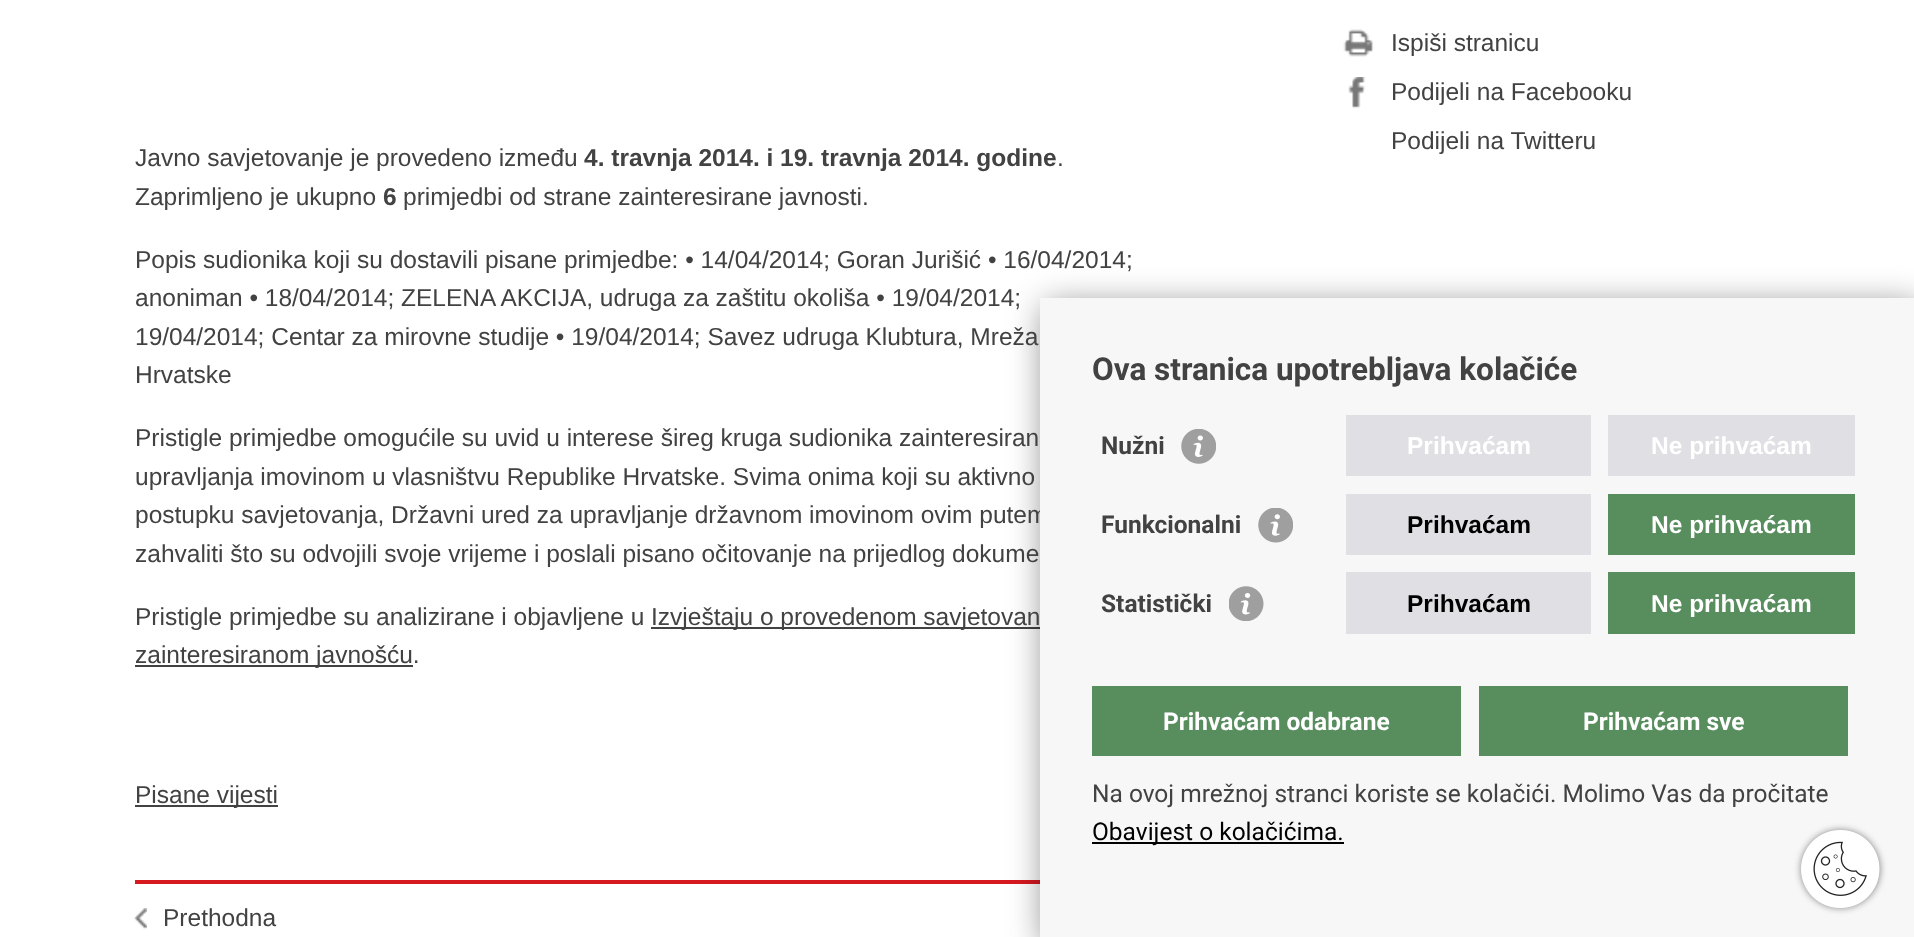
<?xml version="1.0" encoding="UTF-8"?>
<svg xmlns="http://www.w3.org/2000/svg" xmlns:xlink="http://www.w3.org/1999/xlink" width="1914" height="937">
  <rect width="100%" height="100%" fill="#ffffff" />
  <image x="1343" y="29" width="31" height="28" xlink:href="image1.png" />
  <image x="1348" y="77" width="18" height="32" xlink:href="image2.png" />
  <rect x="651" y="627" width="389" height="2" fill="#424242" />
  <rect x="135" y="665" width="278" height="2" fill="#424242" />
  <rect x="135" y="805" width="143" height="2" fill="#424242" />
  <rect x="135" y="880" width="905" height="4" fill="#d71920" />
  <image x="134" y="908" width="13" height="22" xlink:href="image3.png" />
  <rect x="1045" y="306" width="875" height="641" fill="#000000" fill-opacity="0.5" filter="blur(17.5px)" />
  <text x="1391" y="51" style="font-family: Liberation Sans; font-size: 24.5px; fill: #424242">Ispiši stranicu</text>
  <text x="1391" y="100" style="font-family: Liberation Sans; font-size: 24.5px; fill: #424242">Podijeli na Facebooku</text>
  <text x="1391" y="149" style="font-family: Liberation Sans; font-size: 24.5px; fill: #424242">Podijeli na Twitteru</text>
  <text x="135" y="166" style="font-family: Liberation Sans; font-size: 24.5px; fill: #424242">Javno savjetovanje je provedeno između</text>
  <text x="584" y="166" style="font-family: Liberation Sans; font-size: 24.5px; font-weight: bold; fill: #424242">4. travnja 2014. i 19. travnja 2014. godine</text>
  <text x="1057" y="166" style="font-family: Liberation Sans; font-size: 24.5px; fill: #424242">.</text>
  <text x="135" y="205" style="font-family: Liberation Sans; font-size: 24.5px; fill: #424242">Zaprimljeno je ukupno</text>
  <text x="383" y="205" style="font-family: Liberation Sans; font-size: 24.5px; font-weight: bold; fill: #424242">6</text>
  <text x="403" y="205" style="font-family: Liberation Sans; font-size: 24.5px; fill: #424242">primjedbi od strane zainteresirane javnosti.</text>
  <text x="135" y="268" style="font-family: Liberation Sans; font-size: 24.5px; fill: #424242">Popis sudionika koji su dostavili pisane primjedbe: • 14/04/2014; Goran Jurišić • 16/04/2014;</text>
  <text x="135" y="306" style="font-family: Liberation Sans; font-size: 24.5px; fill: #424242">anoniman • 18/04/2014; ZELENA AKCIJA, udruga za zaštitu okoliša • 19/04/2014;</text>
  <text x="135" y="345" style="font-family: Liberation Sans; font-size: 24.5px; fill: #424242">19/04/2014; Centar za mirovne studije • 19/04/2014; Savez udruga Klubtura, Mreža</text>
  <text x="135" y="383" style="font-family: Liberation Sans; font-size: 24.5px; fill: #424242">Hrvatske</text>
  <text x="135" y="446" style="font-family: Liberation Sans; font-size: 24.5px; fill: #424242">Pristigle primjedbe omogućile su uvid u interese šireg kruga sudionika zainteresiran</text>
  <text x="135" y="485" style="font-family: Liberation Sans; font-size: 24.5px; fill: #424242">upravljanja imovinom u vlasništvu Republike Hrvatske. Svima onima koji su aktivno</text>
  <text x="135" y="523" style="font-family: Liberation Sans; font-size: 24.5px; fill: #424242">postupku savjetovanja, Državni ured za upravljanje državnom imovinom ovim putem</text>
  <text x="135" y="562" style="font-family: Liberation Sans; font-size: 24.5px; fill: #424242">zahvaliti što su odvojili svoje vrijeme i poslali pisano očitovanje na prijedlog dokume</text>
  <text x="135" y="625" style="font-family: Liberation Sans; font-size: 24.5px; fill: #424242">Pristigle primjedbe su analizirane i objavljene u</text>
  <text x="651" y="625" style="font-family: Liberation Sans; font-size: 24.5px; fill: #424242">Izvještaju o provedenom savjetovan</text>
  <text x="135" y="663" style="font-family: Liberation Sans; font-size: 24.5px; fill: #424242">zainteresiranom javnošću.</text>
  <text x="135" y="803" style="font-family: Liberation Sans; font-size: 24.5px; fill: #424242">Pisane vijesti</text>
  <text x="163" y="926" style="font-family: Liberation Sans; font-size: 24.5px; fill: #424242">Prethodna</text>
  <rect x="1040" y="298" width="874" height="639" fill="#f7f7f7" />
  <text x="1092" y="380" style="font-family: Roboto; font-size: 31.5px; font-weight: bold; fill: #424242">Ova stranica upotrebljava kolačiće</text>
  <text x="1101" y="454" style="font-family: Roboto; font-size: 24.5px; font-weight: bold; fill: #424242">Nužni</text>
  <image x="1181" y="429" width="35" height="35" xlink:href="image4.png" />
  <rect x="1346" y="415" width="245" height="61" fill="#e0e0e4" />
  <text x="1407" y="454" style="font-family: Liberation Sans; font-size: 24.5px; font-weight: bold; fill: #ffffff">Prihvaćam</text>
  <rect x="1608" y="415" width="247" height="61" fill="#e0e0e4" />
  <text x="1651" y="454" style="font-family: Liberation Sans; font-size: 24.5px; font-weight: bold; fill: #ffffff">Ne prihvaćam</text>
  <text x="1101" y="533" style="font-family: Roboto; font-size: 24.5px; font-weight: bold; fill: #424242">Funkcionalni</text>
  <image x="1258" y="508" width="35" height="35" xlink:href="image5.png" />
  <rect x="1346" y="494" width="245" height="61" fill="#e0e0e4" />
  <text x="1407" y="533" style="font-family: Liberation Sans; font-size: 24.5px; font-weight: bold; fill: #000000">Prihvaćam</text>
  <rect x="1608" y="494" width="247" height="61" fill="#588e5e" />
  <text x="1651" y="533" style="font-family: Liberation Sans; font-size: 24.5px; font-weight: bold; fill: #ffffff">Ne prihvaćam</text>
  <text x="1101" y="612" style="font-family: Roboto; font-size: 24.5px; font-weight: bold; fill: #424242">Statistički</text>
  <image x="1229" y="586" width="35" height="35" xlink:href="image6.png" />
  <rect x="1346" y="572" width="245" height="62" fill="#e0e0e4" />
  <text x="1407" y="612" style="font-family: Liberation Sans; font-size: 24.5px; font-weight: bold; fill: #000000">Prihvaćam</text>
  <rect x="1608" y="572" width="247" height="62" fill="#588e5e" />
  <text x="1651" y="612" style="font-family: Liberation Sans; font-size: 24.5px; font-weight: bold; fill: #ffffff">Ne prihvaćam</text>
  <rect x="1092" y="686" width="369" height="70" fill="#588e5e" />
  <text x="1163" y="730" style="font-family: Roboto; font-size: 24.5px; font-weight: bold; fill: #ffffff">Prihvaćam odabrane</text>
  <rect x="1479" y="686" width="369" height="70" fill="#588e5e" />
  <text x="1583" y="730" style="font-family: Roboto; font-size: 24.5px; font-weight: bold; fill: #ffffff">Prihvaćam sve</text>
  <text x="1092" y="802" style="font-family: Roboto; font-size: 24.5px; fill: #424242">Na ovoj mrežnoj stranci koriste se kolačići. Molimo Vas da pročitate</text>
  <rect x="1092" y="842" width="252" height="2" fill="#000000" />
  <text x="1092" y="840" style="font-family: Roboto; font-size: 24.5px; fill: #000000">Obavijest o kolačićima.</text>
  <rect x="1801" y="830" width="79" height="78" rx="39" fill="#858585" filter="blur(3.5px)" />
  <image x="1801" y="830" width="79" height="78" xlink:href="image7.png" />
</svg>
